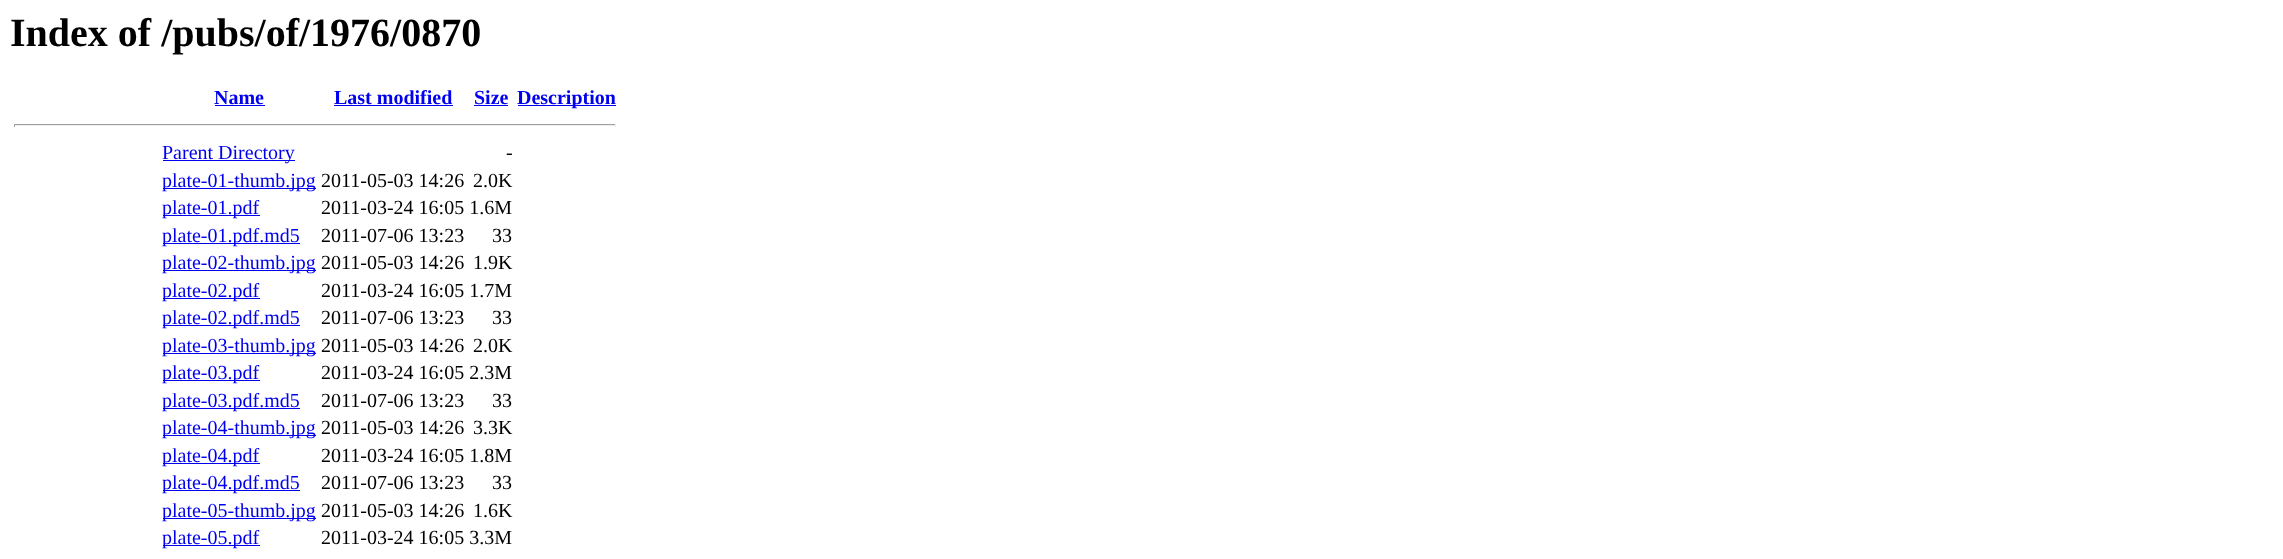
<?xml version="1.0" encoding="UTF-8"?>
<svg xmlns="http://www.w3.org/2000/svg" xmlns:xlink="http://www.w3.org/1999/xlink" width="2283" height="559">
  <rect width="100%" height="100%" fill="#ffffff" />
  <rect x="215" y="105" width="50" height="1" fill="#0000ee" />
  <rect x="334" y="105" width="119" height="1" fill="#0000ee" />
  <rect x="474" y="105" width="34" height="1" fill="#0000ee" />
  <rect x="518" y="105" width="98" height="1" fill="#0000ee" />
  <rect x="14" y="124" width="602" height="1" fill="#9f9f9f" />
  <rect x="615" y="124" width="1" height="3" fill="#eeeeee" />
  <rect x="14" y="125" width="602" height="1" fill="#eeeeee" />
  <rect x="14" y="124" width="1" height="3" fill="#9f9f9f" />
  <rect x="163" y="160" width="132" height="1" fill="#0000ee" />
  <rect x="163" y="188" width="153" height="1" fill="#0000ee" />
  <rect x="163" y="215" width="97" height="1" fill="#0000ee" />
  <rect x="163" y="243" width="137" height="1" fill="#0000ee" />
  <rect x="163" y="270" width="153" height="1" fill="#0000ee" />
  <rect x="163" y="298" width="97" height="1" fill="#0000ee" />
  <rect x="163" y="325" width="137" height="1" fill="#0000ee" />
  <rect x="163" y="353" width="153" height="1" fill="#0000ee" />
  <rect x="163" y="380" width="97" height="1" fill="#0000ee" />
  <rect x="163" y="408" width="137" height="1" fill="#0000ee" />
  <rect x="163" y="435" width="153" height="1" fill="#0000ee" />
  <rect x="163" y="463" width="97" height="1" fill="#0000ee" />
  <rect x="163" y="490" width="137" height="1" fill="#0000ee" />
  <rect x="163" y="518" width="153" height="1" fill="#0000ee" />
  <rect x="163" y="545" width="97" height="1" fill="#0000ee" />
  <text x="10" y="46" style="font-family: Liberation Serif; font-size: 40px; font-weight: bold; fill: #000000">Index of /pubs/of/1976/0870</text>
  <text x="214" y="104" style="font-family: Liberation Serif; font-size: 20px; font-weight: bold; fill: #0000ee">Name</text>
  <text x="334" y="104" style="font-family: Liberation Serif; font-size: 20px; font-weight: bold; fill: #0000ee">Last modified</text>
  <text x="474" y="104" style="font-family: Liberation Serif; font-size: 20px; font-weight: bold; fill: #0000ee">Size</text>
  <text x="517" y="104" style="font-family: Liberation Serif; font-size: 20px; font-weight: bold; fill: #0000ee">Description</text>
  <text x="162" y="159" style="font-family: Liberation Serif; font-size: 20px; fill: #0000ee">Parent Directory</text>
  <text x="506" y="159" style="font-family: Liberation Serif; font-size: 20px; fill: #000000">-</text>
  <text x="162" y="187" style="font-family: Liberation Serif; font-size: 20px; fill: #0000ee">plate-01-thumb.jpg</text>
  <text x="321" y="187" style="font-family: Liberation Serif; font-size: 20px; fill: #000000">2011-05-03 14:26</text>
  <text x="473" y="187" style="font-family: Liberation Serif; font-size: 20px; fill: #000000">2.0K</text>
  <text x="162" y="214" style="font-family: Liberation Serif; font-size: 20px; fill: #0000ee">plate-01.pdf</text>
  <text x="321" y="214" style="font-family: Liberation Serif; font-size: 20px; fill: #000000">2011-03-24 16:05 1.6M</text>
  <text x="162" y="242" style="font-family: Liberation Serif; font-size: 20px; fill: #0000ee">plate-01.pdf.md5</text>
  <text x="321" y="242" style="font-family: Liberation Serif; font-size: 20px; fill: #000000">2011-07-06 13:23</text>
  <text x="492" y="242" style="font-family: Liberation Serif; font-size: 20px; fill: #000000">33</text>
  <text x="162" y="269" style="font-family: Liberation Serif; font-size: 20px; fill: #0000ee">plate-02-thumb.jpg</text>
  <text x="321" y="269" style="font-family: Liberation Serif; font-size: 20px; fill: #000000">2011-05-03 14:26</text>
  <text x="473" y="269" style="font-family: Liberation Serif; font-size: 20px; fill: #000000">1.9K</text>
  <text x="162" y="297" style="font-family: Liberation Serif; font-size: 20px; fill: #0000ee">plate-02.pdf</text>
  <text x="321" y="297" style="font-family: Liberation Serif; font-size: 20px; fill: #000000">2011-03-24 16:05 1.7M</text>
  <text x="162" y="324" style="font-family: Liberation Serif; font-size: 20px; fill: #0000ee">plate-02.pdf.md5</text>
  <text x="321" y="324" style="font-family: Liberation Serif; font-size: 20px; fill: #000000">2011-07-06 13:23</text>
  <text x="492" y="324" style="font-family: Liberation Serif; font-size: 20px; fill: #000000">33</text>
  <text x="162" y="352" style="font-family: Liberation Serif; font-size: 20px; fill: #0000ee">plate-03-thumb.jpg</text>
  <text x="321" y="352" style="font-family: Liberation Serif; font-size: 20px; fill: #000000">2011-05-03 14:26</text>
  <text x="473" y="352" style="font-family: Liberation Serif; font-size: 20px; fill: #000000">2.0K</text>
  <text x="162" y="379" style="font-family: Liberation Serif; font-size: 20px; fill: #0000ee">plate-03.pdf</text>
  <text x="321" y="379" style="font-family: Liberation Serif; font-size: 20px; fill: #000000">2011-03-24 16:05 2.3M</text>
  <text x="162" y="407" style="font-family: Liberation Serif; font-size: 20px; fill: #0000ee">plate-03.pdf.md5</text>
  <text x="321" y="407" style="font-family: Liberation Serif; font-size: 20px; fill: #000000">2011-07-06 13:23</text>
  <text x="492" y="407" style="font-family: Liberation Serif; font-size: 20px; fill: #000000">33</text>
  <text x="162" y="434" style="font-family: Liberation Serif; font-size: 20px; fill: #0000ee">plate-04-thumb.jpg</text>
  <text x="321" y="434" style="font-family: Liberation Serif; font-size: 20px; fill: #000000">2011-05-03 14:26</text>
  <text x="473" y="434" style="font-family: Liberation Serif; font-size: 20px; fill: #000000">3.3K</text>
  <text x="162" y="462" style="font-family: Liberation Serif; font-size: 20px; fill: #0000ee">plate-04.pdf</text>
  <text x="321" y="462" style="font-family: Liberation Serif; font-size: 20px; fill: #000000">2011-03-24 16:05 1.8M</text>
  <text x="162" y="489" style="font-family: Liberation Serif; font-size: 20px; fill: #0000ee">plate-04.pdf.md5</text>
  <text x="321" y="489" style="font-family: Liberation Serif; font-size: 20px; fill: #000000">2011-07-06 13:23</text>
  <text x="492" y="489" style="font-family: Liberation Serif; font-size: 20px; fill: #000000">33</text>
  <text x="162" y="517" style="font-family: Liberation Serif; font-size: 20px; fill: #0000ee">plate-05-thumb.jpg</text>
  <text x="321" y="517" style="font-family: Liberation Serif; font-size: 20px; fill: #000000">2011-05-03 14:26</text>
  <text x="473" y="517" style="font-family: Liberation Serif; font-size: 20px; fill: #000000">1.6K</text>
  <text x="162" y="544" style="font-family: Liberation Serif; font-size: 20px; fill: #0000ee">plate-05.pdf</text>
  <text x="321" y="544" style="font-family: Liberation Serif; font-size: 20px; fill: #000000">2011-03-24 16:05 3.3M</text>
</svg>
